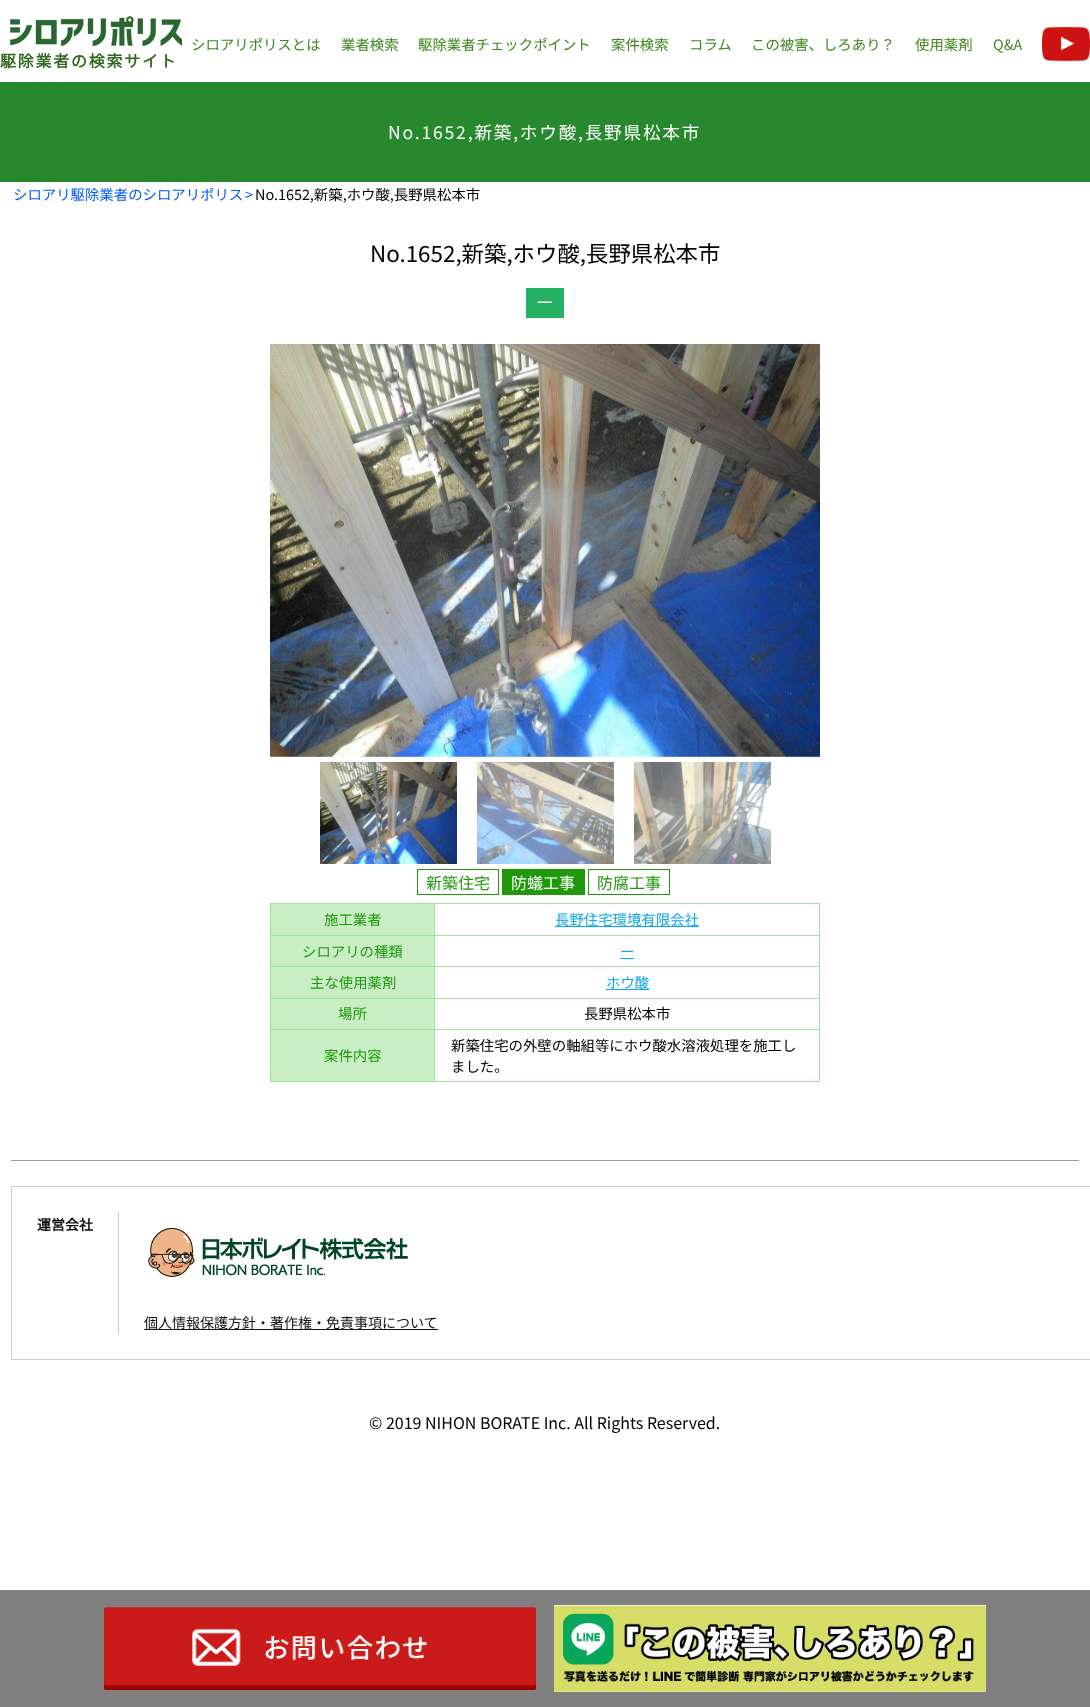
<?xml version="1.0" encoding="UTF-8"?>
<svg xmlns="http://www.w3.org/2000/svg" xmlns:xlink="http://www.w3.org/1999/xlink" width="1090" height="1707">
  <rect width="100%" height="100%" fill="#ffffff" />
  <image x="1042" y="26" width="48" height="36" xlink:href="image1.png" />
  <image x="10" y="16" width="172" height="30" xlink:href="image2.png" />
  <rect y="82" width="1090" height="100" fill="#28882d" />
  <rect x="526" y="288" width="38" height="30" fill="#26b265" />
  <image x="270" y="344" width="550" height="413" xlink:href="image3.png" />
  <image x="320" y="762" width="137" height="102" xlink:href="image4.png" />
  <image x="477" y="762" width="137" height="102" xlink:href="image5.png" />
  <image x="634" y="762" width="137" height="102" xlink:href="image6.png" />
  <rect x="417.5" y="869.5" width="81" height="25" fill="none" stroke="#1f990b" />
  <rect x="502" y="869" width="83" height="26" fill="#1f990b" />
  <rect x="588.5" y="869.5" width="81" height="25" fill="none" stroke="#1f990b" />
  <rect x="270.5" y="903.5" width="549" height="178" fill="none" stroke="#9ce796" />
  <rect x="271" y="904" width="163" height="31" fill="#c9eec6" />
  <rect x="434" y="904" width="1" height="177" fill="#9ce796" />
  <rect x="271" y="935" width="548" height="1" fill="#9ce796" />
  <rect x="555" y="926" width="144" height="1" fill="#0da8e9" />
  <rect x="271" y="936" width="163" height="30" fill="#c9eec6" />
  <rect x="271" y="966" width="548" height="1" fill="#9ce796" />
  <rect x="620" y="958" width="14" height="1" fill="#0da8e9" />
  <rect x="271" y="967" width="163" height="31" fill="#c9eec6" />
  <rect x="271" y="998" width="548" height="1" fill="#9ce796" />
  <rect x="606" y="989" width="43" height="1" fill="#0da8e9" />
  <rect x="271" y="999" width="163" height="30" fill="#c9eec6" />
  <rect x="271" y="1029" width="548" height="1" fill="#9ce796" />
  <rect x="271" y="1030" width="163" height="51" fill="#c9eec6" />
  <rect x="11" y="1160" width="1068" height="1" fill="#9c9c9c" />
  <rect x="11.5" y="1186.5" width="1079" height="173" fill="none" stroke="#cccccc" />
  <rect x="118" y="1212" width="1" height="122" fill="#cccccc" />
  <image x="148" y="1228" width="260" height="49" xlink:href="image7.png" />
  <rect x="144" y="1329" width="294" height="1" fill="#121212" />
  <rect y="1590" width="1090" height="117" fill="#808080" />
  <image x="104" y="1607" width="432" height="83" xlink:href="image8.png" />
  <image x="554" y="1605" width="432" height="87" xlink:href="image9.png" />
  <text x="191" y="50" style="font-family: Noto Sans JP; font-size: 14.4px; font-weight: 100; fill: #3d851d">シロアリポリスとは</text>
  <text x="341" y="50" style="font-family: Noto Sans JP; font-size: 14.4px; font-weight: 100; fill: #3d851d">業者検索</text>
  <text x="418" y="50" style="font-family: Noto Sans JP; font-size: 14.4px; font-weight: 100; fill: #3d851d">駆除業者チェックポイント</text>
  <text x="611" y="50" style="font-family: Noto Sans JP; font-size: 14.4px; font-weight: 100; fill: #3d851d">案件検索</text>
  <text x="689" y="50" style="font-family: Noto Sans JP; font-size: 14.4px; font-weight: 100; fill: #3d851d">コラム</text>
  <text x="751" y="50" style="font-family: Noto Sans JP; font-size: 14.4px; font-weight: 100; fill: #3d851d">この被害、しろあり？</text>
  <text x="915" y="50" style="font-family: Noto Sans JP; font-size: 14.4px; font-weight: 100; fill: #3d851d">使用薬剤</text>
  <text x="993" y="50" style="font-family: Noto Sans JP; font-size: 14.4px; font-weight: 100; fill: #3d851d">Q&amp;A</text>
  <text x="0" y="67" style="font-family: Noto Sans JP; font-size: 16px; font-weight: bold; letter-spacing: 1.75px; fill: #306820">駆除業者の検索サイト</text>
  <text x="388" y="139" style="font-family: Noto Sans JP; font-size: 17.6px; font-weight: 100; letter-spacing: 1.8px; fill: #ffffff">No.1652,新築,ホウ酸,長野県松本市</text>
  <text x="13" y="200" style="font-family: Noto Sans JP; font-size: 14.4px; font-weight: 100; fill: #005aff">シロアリ駆除業者のシロアリポリス</text>
  <text x="245" y="200" style="font-family: Noto Sans JP; font-size: 14.4px; font-weight: 100; fill: #005aff">&gt;</text>
  <text x="255" y="200" style="font-family: Noto Sans JP; font-size: 14.4px; font-weight: 100; fill: #010101">No.1652,新築,ホウ酸,長野県松本市</text>
  <text x="370" y="262" style="font-family: Noto Sans JP; font-size: 22.4px; font-weight: 100; fill: #010101">No.1652,新築,ホウ酸,長野県松本市</text>
  <text x="536" y="309" style="font-family: Noto Sans JP; font-size: 17.6px; font-weight: 100; fill: #ffffff">ー</text>
  <text x="426" y="889" style="font-family: Noto Sans JP; font-size: 16px; font-weight: 100; fill: #1f990b">新築住宅</text>
  <text x="511" y="889" style="font-family: Noto Sans JP; font-size: 16px; font-weight: 100; fill: #ffffff">防蟻工事</text>
  <text x="597" y="889" style="font-family: Noto Sans JP; font-size: 16px; font-weight: 100; fill: #1f990b">防腐工事</text>
  <text x="324" y="925" style="font-family: Noto Sans JP; font-size: 14.4px; font-weight: 100; fill: #1f990b">施工業者</text>
  <text x="555" y="925" style="font-family: Noto Sans JP; font-size: 14.4px; font-weight: 100; fill: #0da8e9">長野住宅環境有限会社</text>
  <text x="302" y="957" style="font-family: Noto Sans JP; font-size: 14.4px; font-weight: 100; fill: #1f990b">シロアリの種類</text>
  <text x="620" y="957" style="font-family: Noto Sans JP; font-size: 14.4px; font-weight: 100; fill: #0da8e9">ー</text>
  <text x="310" y="988" style="font-family: Noto Sans JP; font-size: 14.4px; font-weight: 100; fill: #1f990b">主な使用薬剤</text>
  <text x="606" y="988" style="font-family: Noto Sans JP; font-size: 14.4px; font-weight: 100; fill: #0da8e9">ホウ酸</text>
  <text x="338" y="1019" style="font-family: Noto Sans JP; font-size: 14.4px; font-weight: 100; fill: #1f990b">場所</text>
  <text x="584" y="1019" style="font-family: Noto Sans JP; font-size: 14.4px; font-weight: 100; fill: #010101">長野県松本市</text>
  <text x="324" y="1061" style="font-family: Noto Sans JP; font-size: 14.4px; font-weight: 100; fill: #1f990b">案件内容</text>
  <text x="451" y="1051" style="font-family: Noto Sans JP; font-size: 14.4px; font-weight: 100; fill: #010101">新築住宅の外壁の軸組等にホウ酸水溶液処理を施工し</text>
  <text x="451" y="1072" style="font-family: Noto Sans JP; font-size: 14.4px; font-weight: 100; fill: #010101">ました。</text>
  <text x="37" y="1230" style="font-family: Noto Sans JP; font-size: 14px; font-weight: bold; fill: #010101">運営会社</text>
  <text x="144" y="1328" style="font-family: Noto Sans JP; font-size: 14px; font-weight: 100; fill: #121212">個人情報保護方針・著作権・免責事項について</text>
  <text x="369" y="1429" style="font-family: Noto Sans JP; font-size: 16px; font-weight: 100; fill: #010101">© 2019 NIHON BORATE Inc. All Rights Reserved.</text>
</svg>
